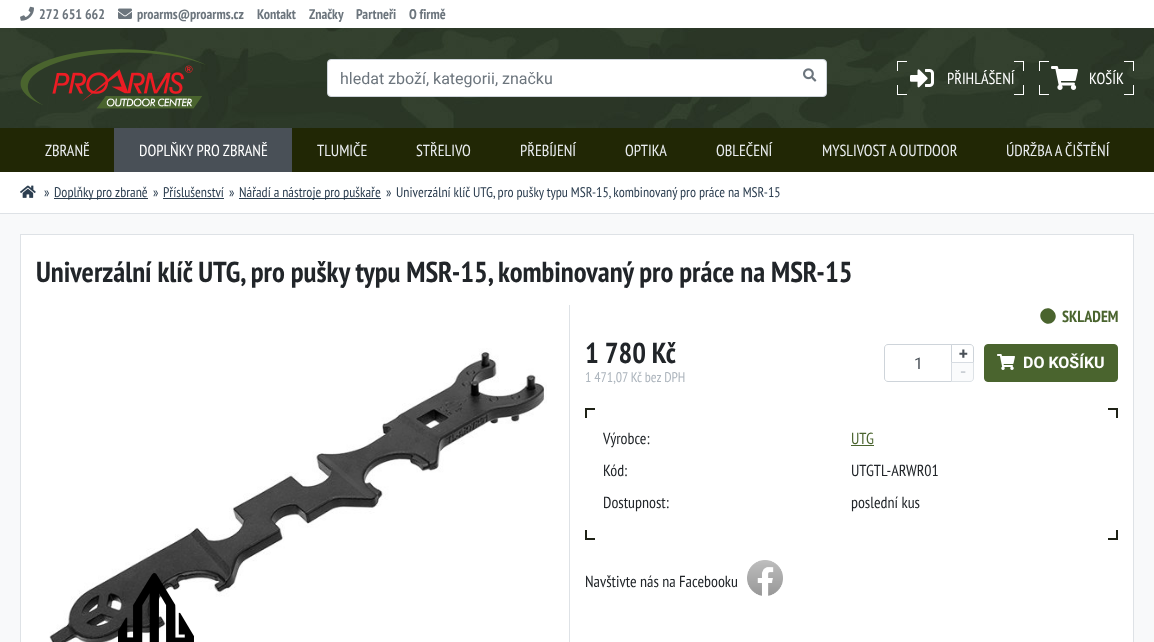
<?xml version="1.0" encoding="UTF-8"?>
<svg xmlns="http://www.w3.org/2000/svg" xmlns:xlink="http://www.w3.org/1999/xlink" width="1154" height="642">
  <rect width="100%" height="100%" fill="#f8f9fa" />
  <image x="0" y="28" width="1154" height="100" xlink:href="image1.png" />
  <rect width="1154" height="28" fill="#ffffff" />
  <image x="20" y="6" width="14" height="15" xlink:href="image2.png" />
  <image x="118" y="8" width="14" height="11" xlink:href="image3.png" />
  <image x="20" y="49" width="186" height="60" xlink:href="image4.png" />
  <rect x="327.5" y="59.5" width="499" height="37" rx="3.5" fill="#ffffff" stroke="#ced4da" />
  <image x="803" y="68" width="14" height="14" xlink:href="image5.png" />
  <rect x="897" y="61" width="10" height="1" fill="#ffffff" />
  <rect x="897" y="61" width="1" height="10" fill="#ffffff" />
  <rect x="1014" y="61" width="10" height="1" fill="#ffffff" />
  <rect x="1023" y="61" width="1" height="10" fill="#ffffff" />
  <image x="910" y="69" width="24" height="19" xlink:href="image6.png" />
  <rect x="897" y="94" width="10" height="1" fill="#ffffff" />
  <rect x="897" y="85" width="1" height="10" fill="#ffffff" />
  <rect x="1023" y="85" width="1" height="10" fill="#ffffff" />
  <rect x="1014" y="94" width="10" height="1" fill="#ffffff" />
  <rect x="1039" y="61" width="10" height="1" fill="#ffffff" />
  <rect x="1039" y="61" width="1" height="10" fill="#ffffff" />
  <rect x="1124" y="61" width="10" height="1" fill="#ffffff" />
  <rect x="1133" y="61" width="1" height="10" fill="#ffffff" />
  <image x="1051" y="66" width="27" height="24" xlink:href="image7.png" />
  <rect x="1039" y="94" width="10" height="1" fill="#ffffff" />
  <rect x="1039" y="85" width="1" height="10" fill="#ffffff" />
  <rect x="1133" y="85" width="1" height="10" fill="#ffffff" />
  <rect x="1124" y="94" width="10" height="1" fill="#ffffff" />
  <rect y="128" width="1154" height="44" fill="#212705" />
  <rect x="114" y="128" width="178" height="44" fill="#495057" />
  <rect y="172" width="1154" height="41" fill="#ffffff" />
  <rect y="213" width="1154" height="1" fill="#dee2e6" />
  <image x="20" y="185" width="16" height="13" xlink:href="image8.png" />
  <rect x="54" y="198" width="94" height="1" fill="#2c3e50" />
  <rect x="163" y="198" width="61" height="1" fill="#2c3e50" />
  <rect x="239" y="198" width="142" height="1" fill="#2c3e50" />
  <rect x="20.5" y="234.5" width="1113" height="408" fill="#ffffff" stroke="#dee2e6" />
  <rect x="569" y="305" width="1" height="337" fill="#dee2e6" />
  <image x="49" y="348" width="498" height="294" xlink:href="image9.png" />
  <image x="118" y="573" width="76" height="69" xlink:href="image10.png" />
  <path d="M 1042.5 310.5 c 7 -7 18 4 11 11 c -7 7 -18 -4 -11 -11 z" fill="#4a642e" />
  <path d="M 888 344.5 h 63.5 v 37 h -63.5 c -2 0 -3.5 -1.5 -3.5 -3.5 v -30 c 0 -2 1.5 -3.5 3.5 -3.5 z" fill="none" stroke="#ced4da" />
  <path d="M 951.5 344.5 h 18.5 c 2 0 3.5 1.5 3.5 3.5 v 14.5 h -22 z" fill="none" stroke="#ced4da" />
  <path d="M 951 362 h 23 v 16 c 0 2 -2 4 -4 4 h -19 z" fill="#f8f9fa" fill-opacity="0.65" />
  <path d="M 951.5 362.5 h 22 v 15.5 c 0 2 -1.5 3.5 -3.5 3.5 h -18.5 z" fill="none" stroke="#ced4da" stroke-opacity="0.65" />
  <rect x="984.5" y="344.5" width="133" height="37" rx="3.5" fill="#4a642e" stroke="#4a642e" />
  <image x="997" y="354" width="18" height="16" xlink:href="image11.png" />
  <rect x="585" y="408" width="10" height="2" fill="#1f2217" />
  <rect x="585" y="408" width="2" height="10" fill="#1f2217" />
  <rect x="1108" y="408" width="10" height="2" fill="#1f2217" />
  <rect x="1116" y="408" width="2" height="10" fill="#1f2217" />
  <rect x="851" y="445" width="23" height="1" fill="#4a642e" />
  <rect x="585" y="538" width="10" height="2" fill="#1f2217" />
  <rect x="585" y="530" width="2" height="10" fill="#1f2217" />
  <rect x="1116" y="530" width="2" height="10" fill="#1f2217" />
  <rect x="1108" y="538" width="10" height="2" fill="#1f2217" />
  <image x="747" y="560" width="36" height="36" xlink:href="image12.png" />
  <text x="39" y="19" style="font-family: PT Sans Narrow; font-size: 14px; font-weight: bold; fill: #6c757d">272 651 662</text>
  <text x="137" y="19" style="font-family: PT Sans Narrow; font-size: 14px; font-weight: bold; fill: #6c757d">proarms@proarms.cz</text>
  <text x="257" y="19" style="font-family: PT Sans Narrow; font-size: 14px; font-weight: bold; fill: #6c757d">Kontakt</text>
  <text x="309" y="19" style="font-family: PT Sans Narrow; font-size: 14px; font-weight: bold; fill: #6c757d">Značky</text>
  <text x="356" y="19" style="font-family: PT Sans Narrow; font-size: 14px; font-weight: bold; fill: #6c757d">Partneři</text>
  <text x="409" y="19" style="font-family: PT Sans Narrow; font-size: 14px; font-weight: bold; fill: #6c757d">O firmě</text>
  <text x="340" y="84" style="font-family: Roboto; font-size: 16px; fill: #6c757d">hledat zboží, kategorii, značku</text>
  <text x="947" y="84" style="font-family: PT Sans Narrow; font-size: 16px; fill: #ffffff">PŘIHLÁŠENÍ</text>
  <text x="1089" y="84" style="font-family: PT Sans Narrow; font-size: 16px; fill: #ffffff">KOŠÍK</text>
  <text x="45" y="156" style="font-family: PT Sans Narrow; font-size: 16px; fill: #e9ecef">ZBRANĚ</text>
  <text x="139" y="156" style="font-family: PT Sans Narrow; font-size: 16px; fill: #ffffff">DOPLŇKY PRO ZBRANĚ</text>
  <text x="317" y="156" style="font-family: PT Sans Narrow; font-size: 16px; fill: #e9ecef">TLUMIČE</text>
  <text x="416" y="156" style="font-family: PT Sans Narrow; font-size: 16px; fill: #e9ecef">STŘELIVO</text>
  <text x="520" y="156" style="font-family: PT Sans Narrow; font-size: 16px; fill: #e9ecef">PŘEBÍJENÍ</text>
  <text x="625" y="156" style="font-family: PT Sans Narrow; font-size: 16px; fill: #e9ecef">OPTIKA</text>
  <text x="716" y="156" style="font-family: PT Sans Narrow; font-size: 16px; fill: #e9ecef">OBLEČENÍ</text>
  <text x="822" y="156" style="font-family: PT Sans Narrow; font-size: 16px; fill: #e9ecef">MYSLIVOST A OUTDOOR</text>
  <text x="1006" y="156" style="font-family: PT Sans Narrow; font-size: 16px; fill: #e9ecef">ÚDRŽBA A ČIŠTĚNÍ</text>
  <text x="44" y="197" style="font-family: PT Sans Narrow; font-size: 14px; fill: #2c3e50">»</text>
  <text x="54" y="197" style="font-family: PT Sans Narrow; font-size: 14px; fill: #2c3e50">Doplňky pro zbraně</text>
  <text x="153" y="197" style="font-family: PT Sans Narrow; font-size: 14px; fill: #2c3e50">»</text>
  <text x="163" y="197" style="font-family: PT Sans Narrow; font-size: 14px; fill: #2c3e50">Příslušenství</text>
  <text x="229" y="197" style="font-family: PT Sans Narrow; font-size: 14px; fill: #2c3e50">»</text>
  <text x="239" y="197" style="font-family: PT Sans Narrow; font-size: 14px; fill: #2c3e50">Nářadí a nástroje pro puškaře</text>
  <text x="386" y="197" style="font-family: PT Sans Narrow; font-size: 14px; fill: #2c3e50">»</text>
  <text x="396" y="197" style="font-family: PT Sans Narrow; font-size: 14px; fill: #2c3e50">Univerzální klíč UTG, pro pušky typu MSR-15, kombinovaný pro práce na MSR-15</text>
  <text x="36" y="282" style="font-family: PT Sans Narrow; font-size: 28.8px; font-weight: bold; fill: #212529">Univerzální klíč UTG, pro pušky typu MSR-15, kombinovaný pro práce na MSR-15</text>
  <text x="1062" y="322" style="font-family: PT Sans Narrow; font-size: 16px; font-weight: bold; fill: #4a642e">SKLADEM</text>
  <text x="585" y="363" style="font-family: PT Sans Narrow; font-size: 28.8px; font-weight: bold; fill: #212529">1 780 Kč</text>
  <text x="585" y="382" style="font-family: PT Sans Narrow; font-size: 14px; fill: #adb5bd">1 471,07 Kč bez DPH</text>
  <text x="959" y="359" style="font-family: Roboto; font-size: 16px; font-weight: bold; fill: #495057">+</text>
  <text x="914" y="369" style="font-family: Roboto; font-size: 16px; fill: #495057">1</text>
  <text x="960" y="377" style="font-family: Roboto; font-size: 16px; font-weight: bold; fill: #cacfd4">-</text>
  <text x="1023" y="368" style="font-family: Roboto; font-size: 16px; font-weight: bold; fill: #ffffff">DO KOŠÍKU</text>
  <text x="603" y="444" style="font-family: PT Sans Narrow; font-size: 16px; fill: #212529">Výrobce:</text>
  <text x="851" y="444" style="font-family: PT Sans Narrow; font-size: 16px; fill: #4a642e">UTG</text>
  <text x="603" y="476" style="font-family: PT Sans Narrow; font-size: 16px; fill: #212529">Kód:</text>
  <text x="851" y="476" style="font-family: PT Sans Narrow; font-size: 16px; fill: #212529">UTGTL-ARWR01</text>
  <text x="603" y="508" style="font-family: PT Sans Narrow; font-size: 16px; fill: #212529">Dostupnost:</text>
  <text x="851" y="508" style="font-family: PT Sans Narrow; font-size: 16px; fill: #212529">poslední kus</text>
  <text x="585" y="587" style="font-family: PT Sans Narrow; font-size: 16px; fill: #212529">Navštivte nás na Facebooku</text>
</svg>
